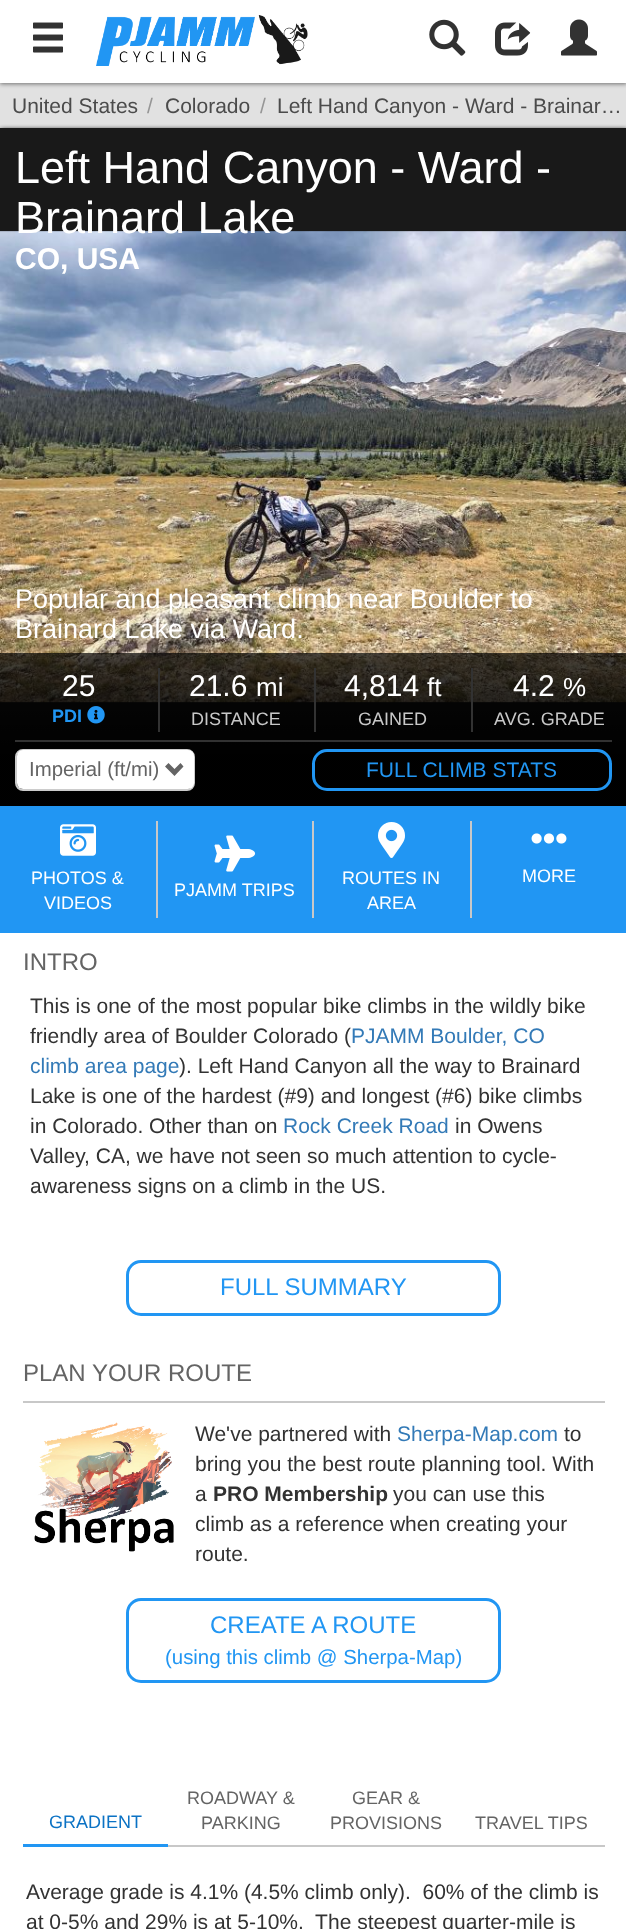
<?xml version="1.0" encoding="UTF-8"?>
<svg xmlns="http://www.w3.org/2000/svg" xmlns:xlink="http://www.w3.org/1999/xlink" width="626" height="1929">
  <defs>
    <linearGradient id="g1" gradientUnits="userSpaceOnUse" x1="314" y1="653" x2="314" y2="806"><stop offset="0" stop-color="#000000" stop-opacity="0.7" /><stop offset="0.66" stop-color="#000000" stop-opacity="0.98" /></linearGradient>
  </defs>
  <rect width="100%" height="100%" fill="#e1e1e1" />
  <rect y="2" width="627" height="82" fill="#000000" fill-opacity="0.5" filter="blur(2px)" />
  <rect width="626" height="83" fill="#ffffff" />
  <image x="33" y="22" width="30" height="31" xlink:href="image1.png" />
  <image x="96" y="15" width="212" height="51" xlink:href="image2.png" />
  <image x="429" y="19" width="37" height="37" xlink:href="image3.png" />
  <image x="495" y="22" width="36" height="34" xlink:href="image4.png" />
  <image x="561" y="19" width="36" height="37" xlink:href="image5.png" />
  <rect x="-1" y="129" width="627" height="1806" fill="#000000" fill-opacity="0.5" filter="blur(2px)" />
  <rect x="2" y="129" width="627" height="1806" fill="#000000" fill-opacity="0.5" filter="blur(2px)" />
  <rect y="933" width="626" height="996" fill="#ffffff" />
  <rect y="128" width="626" height="678" fill="#191919" />
  <image x="0" y="231" width="626" height="472" xlink:href="image6.png" />
  <rect y="653" width="626" height="153" fill="url(#g1)" />
  <image x="87" y="706" width="18" height="18" xlink:href="image7.png" />
  <rect x="158" y="668" width="2" height="64" fill="#323232" />
  <rect x="314" y="668" width="2" height="64" fill="#323232" />
  <rect x="471" y="668" width="2" height="64" fill="#323232" />
  <rect x="15" y="740" width="597" height="2" fill="#323232" />
  <rect x="16" y="750" width="178" height="40" rx="7" fill="none" stroke="#cccccc" stroke-width="2" />
  <rect x="17" y="750" width="177" height="39" rx="6" fill="#ffffff" />
  <path d="M 183.5 766.5 l -9 9.5 l -9.5 -9.5 l 3.5 -3.5 l 6 6 l 6 -6 z" fill="#646464" />
  <rect x="313.5" y="750.5" width="297" height="39" rx="13.5" fill="none" stroke="#2196f3" stroke-width="3" />
  <rect y="806" width="626" height="127" fill="#2196f3" />
  <rect x="156" y="821" width="2" height="97" fill="#c8c8c8" />
  <image x="60" y="824" width="36" height="32" xlink:href="image8.png" />
  <rect x="312" y="821" width="2" height="97" fill="#c8c8c8" />
  <image x="214" y="835" width="42" height="37" xlink:href="image9.png" />
  <rect x="470" y="821" width="2" height="97" fill="#c8c8c8" />
  <image x="378" y="822" width="27" height="36" xlink:href="image10.png" />
  <image x="531" y="833" width="36" height="11" xlink:href="image11.png" />
  <rect x="127.5" y="1261.5" width="372" height="53" rx="13.5" fill="none" stroke="#2196f3" stroke-width="3" />
  <rect x="23" y="1401" width="582" height="2" fill="#c8c8c8" />
  <image x="34" y="1422" width="140" height="130" xlink:href="image12.png" />
  <rect x="127.5" y="1599.5" width="372" height="82" rx="13.5" fill="none" stroke="#2196f3" stroke-width="3" />
  <rect x="23" y="1844" width="145" height="3" fill="#2196f3" />
  <rect x="168" y="1845" width="437" height="2" fill="#c8c8c8" />
  <text x="12" y="113" style="font-family: Liberation Sans; font-size: 21px; fill: #4b4b4b">United States</text>
  <text x="147" y="113" style="font-family: Liberation Sans; font-size: 21px; fill: #969696">/</text>
  <text x="165" y="113" style="font-family: Liberation Sans; font-size: 21px; fill: #4b4b4b">Colorado</text>
  <text x="260" y="113" style="font-family: Liberation Sans; font-size: 21px; fill: #969696">/</text>
  <text x="277" y="113" style="font-family: Liberation Sans; font-size: 21px; fill: #4b4b4b">Left Hand Canyon - Ward - Brainar…</text>
  <text x="15" y="183" style="font-family: Liberation Sans; font-size: 45px; fill: #ffffff">Left Hand Canyon - Ward -</text>
  <text x="15" y="233" style="font-family: Liberation Sans; font-size: 45px; fill: #ffffff">Brainard Lake</text>
  <text x="15" y="269" style="font-family: Liberation Sans; font-size: 30px; font-weight: bold; fill: #ffffff">CO, USA</text>
  <text x="15" y="608" style="font-family: Liberation Sans; font-size: 27px; fill: #ffffff">Popular and pleasant climb near Boulder to</text>
  <text x="15" y="638" style="font-family: Liberation Sans; font-size: 27px; fill: #ffffff">Brainard Lake via Ward.</text>
  <text x="62" y="696" style="font-family: Liberation Sans; font-size: 30px; fill: #ffffff">25</text>
  <text x="52" y="722" style="font-family: Liberation Sans; font-size: 18px; font-weight: bold; fill: #2196f3">PDI</text>
  <text x="189" y="696" style="font-family: Liberation Sans; font-size: 30px; fill: #ffffff">21.6</text>
  <text x="256" y="696" style="font-family: Liberation Sans; font-size: 26px; fill: #ffffff">mi</text>
  <text x="191" y="725" style="font-family: Liberation Sans; font-size: 18px; fill: #c8c8c8">DISTANCE</text>
  <text x="344" y="696" style="font-family: Liberation Sans; font-size: 30px; fill: #ffffff">4,814</text>
  <text x="427" y="696" style="font-family: Liberation Sans; font-size: 26px; fill: #ffffff">ft</text>
  <text x="358" y="725" style="font-family: Liberation Sans; font-size: 18px; fill: #c8c8c8">GAINED</text>
  <text x="513" y="696" style="font-family: Liberation Sans; font-size: 30px; fill: #ffffff">4.2</text>
  <text x="563" y="696" style="font-family: Liberation Sans; font-size: 26px; fill: #ffffff">%</text>
  <text x="494" y="725" style="font-family: Liberation Sans; font-size: 18px; fill: #c8c8c8">AVG. GRADE</text>
  <text x="29" y="776" style="font-family: Liberation Sans; font-size: 20.4px; fill: #646464">Imperial (ft/mi)</text>
  <text x="366" y="777" style="font-family: Liberation Sans; font-size: 21px; fill: #2196f3">FULL CLIMB STATS</text>
  <text x="31" y="884" style="font-family: Liberation Sans; font-size: 18px; fill: #ffffff">PHOTOS &amp;</text>
  <text x="44" y="909" style="font-family: Liberation Sans; font-size: 18px; fill: #ffffff">VIDEOS</text>
  <text x="174" y="896" style="font-family: Liberation Sans; font-size: 18px; fill: #ffffff">PJAMM TRIPS</text>
  <text x="342" y="884" style="font-family: Liberation Sans; font-size: 18px; fill: #ffffff">ROUTES IN</text>
  <text x="367" y="909" style="font-family: Liberation Sans; font-size: 18px; fill: #ffffff">AREA</text>
  <text x="522" y="882" style="font-family: Liberation Sans; font-size: 18px; fill: #ffffff">MORE</text>
  <text x="23" y="970" style="font-family: Liberation Sans; font-size: 24px; fill: #646464">INTRO</text>
  <text x="30" y="1013" style="font-family: Liberation Sans; font-size: 21px; fill: #323232">This is one of the most popular bike climbs in the wildly bike</text>
  <text x="30" y="1043" style="font-family: Liberation Sans; font-size: 21px; fill: #323232">friendly area of Boulder Colorado (</text>
  <text x="351" y="1043" style="font-family: Liberation Sans; font-size: 21px; fill: #337ab7">PJAMM Boulder, CO</text>
  <text x="30" y="1073" style="font-family: Liberation Sans; font-size: 21px; fill: #337ab7">climb area page</text>
  <text x="179" y="1073" style="font-family: Liberation Sans; font-size: 21px; fill: #323232">). Left Hand Canyon all the way to Brainard</text>
  <text x="30" y="1103" style="font-family: Liberation Sans; font-size: 21px; fill: #323232">Lake is one of the hardest (#9) and longest (#6) bike climbs</text>
  <text x="30" y="1133" style="font-family: Liberation Sans; font-size: 21px; fill: #323232">in Colorado. Other than on</text>
  <text x="283" y="1133" style="font-family: Liberation Sans; font-size: 21px; fill: #337ab7">Rock Creek Road</text>
  <text x="455" y="1133" style="font-family: Liberation Sans; font-size: 21px; fill: #323232">in Owens</text>
  <text x="30" y="1163" style="font-family: Liberation Sans; font-size: 21px; fill: #323232">Valley, CA, we have not seen so much attention to cycle-</text>
  <text x="30" y="1193" style="font-family: Liberation Sans; font-size: 21px; fill: #323232">awareness signs on a climb in the US.</text>
  <text x="220" y="1295" style="font-family: Liberation Sans; font-size: 24px; fill: #2196f3">FULL SUMMARY</text>
  <text x="23" y="1381" style="font-family: Liberation Sans; font-size: 24px; fill: #646464">PLAN YOUR ROUTE</text>
  <text x="195" y="1441" style="font-family: Liberation Sans; font-size: 21px; fill: #323232">We've partnered with</text>
  <text x="397" y="1441" style="font-family: Liberation Sans; font-size: 21px; fill: #337ab7">Sherpa-Map.com</text>
  <text x="564" y="1441" style="font-family: Liberation Sans; font-size: 21px; fill: #323232">to</text>
  <text x="195" y="1471" style="font-family: Liberation Sans; font-size: 21px; fill: #323232">bring you the best route planning tool. With</text>
  <text x="195" y="1501" style="font-family: Liberation Sans; font-size: 21px; fill: #323232">a</text>
  <text x="213" y="1501" style="font-family: Liberation Sans; font-size: 21px; font-weight: bold; fill: #323232">PRO Membership</text>
  <text x="393" y="1501" style="font-family: Liberation Sans; font-size: 21px; fill: #323232">you can use this</text>
  <text x="195" y="1531" style="font-family: Liberation Sans; font-size: 21px; fill: #323232">climb as a reference when creating your</text>
  <text x="195" y="1561" style="font-family: Liberation Sans; font-size: 21px; fill: #323232">route.</text>
  <text x="210" y="1633" style="font-family: Liberation Sans; font-size: 24px; fill: #2196f3">CREATE A ROUTE</text>
  <text x="165" y="1664" style="font-family: Liberation Sans; font-size: 20.4px; fill: #2196f3">(using this climb @ Sherpa-Map)</text>
  <text x="49" y="1828" style="font-family: Liberation Sans; font-size: 18px; fill: #0b72c4">GRADIENT</text>
  <text x="187" y="1804" style="font-family: Liberation Sans; font-size: 18px; fill: #646464">ROADWAY &amp;</text>
  <text x="201" y="1829" style="font-family: Liberation Sans; font-size: 18px; fill: #646464">PARKING</text>
  <text x="352" y="1804" style="font-family: Liberation Sans; font-size: 18px; fill: #646464">GEAR &amp;</text>
  <text x="330" y="1829" style="font-family: Liberation Sans; font-size: 18px; fill: #646464">PROVISIONS</text>
  <text x="475" y="1829" style="font-family: Liberation Sans; font-size: 18px; fill: #646464">TRAVEL TIPS</text>
  <text x="26" y="1899" style="font-family: Liberation Sans; font-size: 21px; fill: #323232" xml:space="preserve">Average grade is 4.1% (4.5% climb only).  60% of the climb is</text>
  <text x="26" y="1929" style="font-family: Liberation Sans; font-size: 21px; fill: #323232" xml:space="preserve">at 0-5% and 29% is at 5-10%.  The steepest quarter-mile is</text>
</svg>
